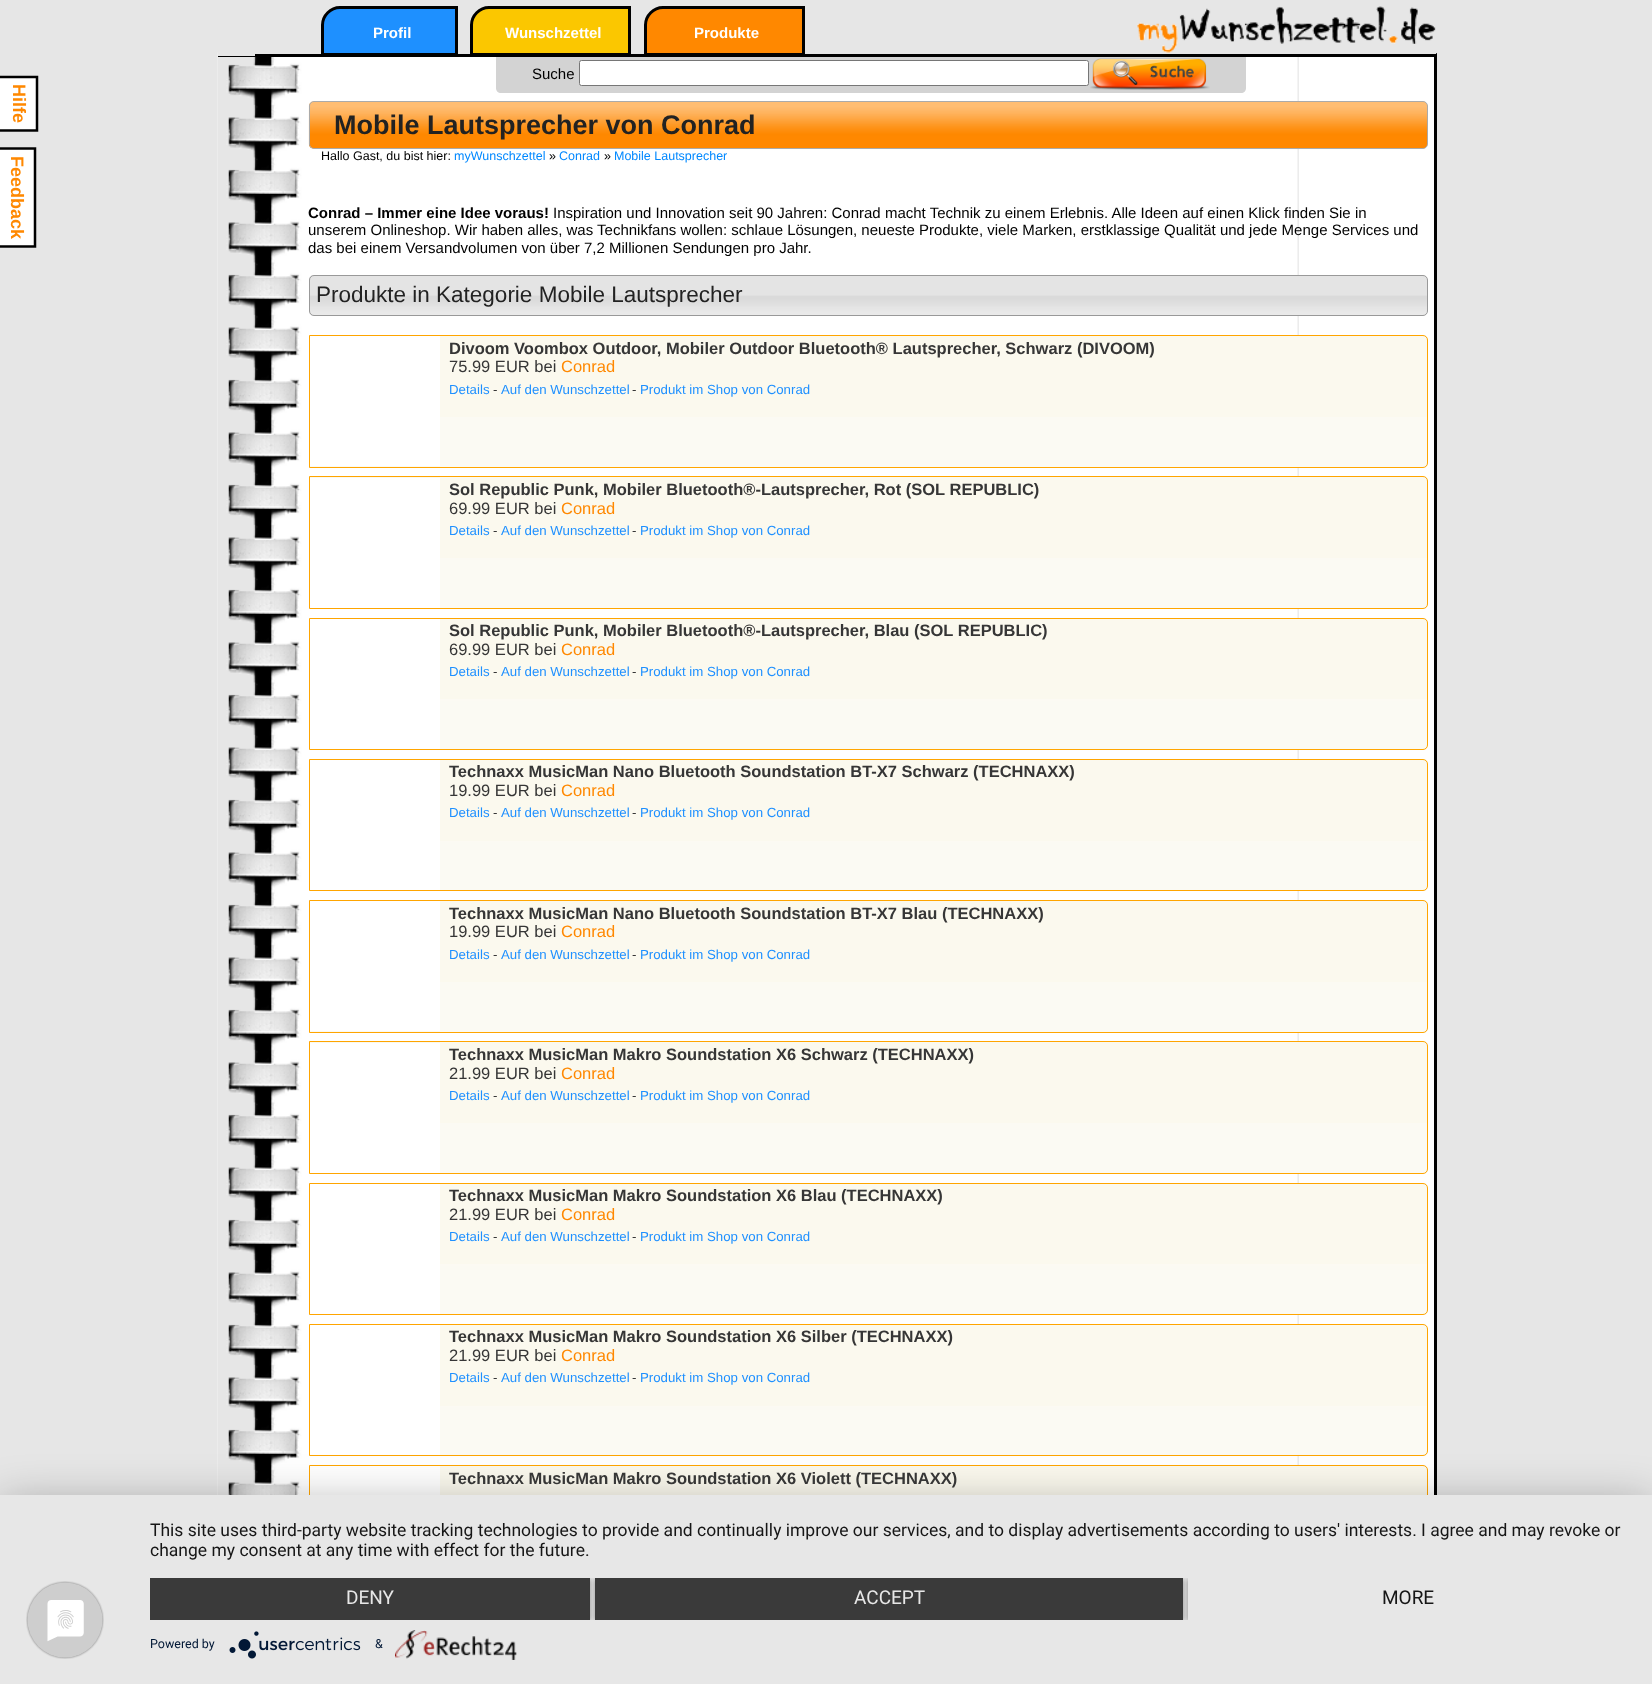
<?xml version="1.0" encoding="UTF-8"?>
<svg xmlns="http://www.w3.org/2000/svg" xmlns:xlink="http://www.w3.org/1999/xlink" width="1652" height="1684">
  <defs>
    <clipPath id="clip1"><rect x="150" y="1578" width="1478" height="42" /></clipPath>
  </defs>
  <rect width="100%" height="100%" fill="#e6e6e6" />
  <rect y="78" width="38" height="54" fill="#ffffff" />
  <path d="M 37 77 v 53.5 h -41.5 v -53.5 z" fill="none" stroke="#000000" stroke-width="2.5" />
  <rect x="1298" y="57" width="136" height="1438" fill="#ffffff" />
  <image x="217" y="52" width="1082" height="1443" xlink:href="image2.png" />
  <rect x="1434" y="53" width="3" height="1442" fill="#000000" />
  <rect x="253" y="52" width="1183" height="2" fill="#e6e6e6" />
  <path d="M 496 55 h 750 v 33 c 0 3 -2 5 -5 5 h -740 c -3 0 -5 -2 -5 -5 z" fill="#d3d3d3" />
  <rect x="218" y="54" width="1218" height="3" fill="#000000" />
  <path d="M 340 7.5 h 116.5 v 47 h -134 v -29.5 c 0 -9.5 8 -17.5 17.5 -17.5 z" fill="#1e90ff" stroke="#000000" stroke-width="3" />
  <path d="M 489 7.5 h 140.5 v 47 h -158 v -29.5 c 0 -9.5 8 -17.5 17.5 -17.5 z" fill="#fbc700" stroke="#000000" stroke-width="3" />
  <path d="M 663 7.5 h 140.5 v 47 h -158 v -29.5 c 0 -9.5 8 -17.5 17.5 -17.5 z" fill="#ff8800" stroke="#000000" stroke-width="3" />
  <image x="1137" y="6" width="300" height="48" xlink:href="image1.png" />
  <rect x="218" y="54" width="37" height="2" fill="#e6e6e6" />
  <rect x="579.5" y="60.5" width="509" height="25" rx="2" fill="#ffffff" stroke="#767676" />
  <image x="1090" y="58" width="120" height="32" xlink:href="image3.png" />
  <image x="308" y="101" width="1120" height="48" xlink:href="image4.png" />
  <rect x="309.5" y="101.5" width="1118" height="47" rx="4.5" fill="none" stroke="#aaaaaa" />
  <image x="309" y="275" width="1118" height="41" xlink:href="image5.png" />
  <rect x="309.5" y="275.5" width="1118" height="40" rx="4.5" fill="none" stroke="#999999" />
  <path d="M 309 335 h 1114 c 3 0 5 2 5 5 v 123 c 0 3 -2 5 -5 5 h -1114 z" fill="#fbf9ee" />
  <rect x="310" y="417" width="1117" height="50" fill="#fbfaf3" />
  <path d="M 309.5 335.5 h 1113.5 c 2.5 0 4.5 2 4.5 4.5 v 123 c 0 2.5 -2 4.5 -4.5 4.5 h -1113.5 z" fill="none" stroke="#ffa500" />
  <rect x="310" y="336" width="130" height="130" fill="#ffffff" />
  <path d="M 309 476 h 1114 c 3 0 5 2 5 5 v 123 c 0 3 -2 5 -5 5 h -1114 z" fill="#fbf9ee" />
  <rect x="440" y="558" width="987" height="50" fill="#fbfaf3" />
  <path d="M 309.5 476.5 h 1113.5 c 2.5 0 4.5 2 4.5 4.5 v 123 c 0 2.5 -2 4.5 -4.5 4.5 h -1113.5 z" fill="none" stroke="#ffa500" />
  <rect x="310" y="478" width="130" height="130" fill="#ffffff" />
  <path d="M 309 618 h 1114 c 3 0 5 2 5 5 v 122 c 0 3 -2 5 -5 5 h -1114 z" fill="#fbf9ee" />
  <image x="440" y="699" width="987" height="51" xlink:href="image6.png" />
  <path d="M 309.5 618.5 h 1113.5 c 2.5 0 4.5 2 4.5 4.5 v 122 c 0 2.5 -2 4.5 -4.5 4.5 h -1113.5 z" fill="none" stroke="#ffa500" />
  <rect x="310" y="619" width="130" height="130" fill="#ffffff" />
  <path d="M 309 759 h 1114 c 3 0 5 2 5 5 v 122 c 0 3 -2 5 -5 5 h -1114 z" fill="#fbf9ee" />
  <image x="440" y="841" width="987" height="50" xlink:href="image7.png" />
  <path d="M 309.5 759.5 h 1113.5 c 2.5 0 4.5 2 4.5 4.5 v 122 c 0 2.5 -2 4.5 -4.5 4.5 h -1113.5 z" fill="none" stroke="#ffa500" />
  <rect x="310" y="760" width="130" height="130" fill="#ffffff" />
  <path d="M 309 900 h 1114 c 3 0 5 2 5 5 v 123 c 0 3 -2 5 -5 5 h -1114 z" fill="#fbf9ee" />
  <rect x="310" y="982" width="1117" height="50" fill="#fbfaf3" />
  <path d="M 309.5 900.5 h 1113.5 c 2.5 0 4.5 2 4.5 4.5 v 123 c 0 2.5 -2 4.5 -4.5 4.5 h -1113.5 z" fill="none" stroke="#ffa500" />
  <rect x="310" y="901" width="130" height="130" fill="#ffffff" />
  <path d="M 309 1041 h 1114 c 3 0 5 2 5 5 v 123 c 0 3 -2 5 -5 5 h -1114 z" fill="#fbf9ee" />
  <rect x="440" y="1123" width="987" height="50" fill="#fbfaf3" />
  <path d="M 309.5 1041.5 h 1113.5 c 2.5 0 4.5 2 4.5 4.5 v 123 c 0 2.5 -2 4.5 -4.5 4.5 h -1113.5 z" fill="none" stroke="#ffa500" />
  <rect x="310" y="1043" width="130" height="130" fill="#ffffff" />
  <path d="M 309 1183 h 1114 c 3 0 5 2 5 5 v 122 c 0 3 -2 5 -5 5 h -1114 z" fill="#fbf9ee" />
  <image x="440" y="1264" width="987" height="51" xlink:href="image6.png" />
  <path d="M 309.5 1183.5 h 1113.5 c 2.5 0 4.5 2 4.5 4.5 v 122 c 0 2.5 -2 4.5 -4.5 4.5 h -1113.5 z" fill="none" stroke="#ffa500" />
  <rect x="310" y="1184" width="130" height="130" fill="#ffffff" />
  <path d="M 309 1324 h 1114 c 3 0 5 2 5 5 v 122 c 0 3 -2 5 -5 5 h -1114 z" fill="#fbf9ee" />
  <image x="440" y="1406" width="987" height="50" xlink:href="image7.png" />
  <path d="M 309.5 1324.5 h 1113.5 c 2.5 0 4.5 2 4.5 4.5 v 122 c 0 2.5 -2 4.5 -4.5 4.5 h -1113.5 z" fill="none" stroke="#ffa500" />
  <rect x="310" y="1325" width="130" height="130" fill="#ffffff" />
  <path d="M 309.5 1465.5 h 1113.5 c 2.5 0 4.5 2 4.5 4.5 v 123 c 0 2.5 -2 4.5 -4.5 4.5 h -1113.5 z" fill="#fbf9ee" stroke="#ffa500" />
  <rect x="310" y="1466" width="130" height="29" fill="#ffffff" />
  <rect y="147" width="36" height="101" fill="#ffffff" />
  <path d="M 35 148.5 v 98 h -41 v -98 z" fill="none" stroke="#000000" stroke-width="2.5" />
  <rect y="1503" width="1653" height="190" fill="#000000" fill-opacity="0.3" filter="blur(22.5px)" />
  <rect y="1495" width="1652" height="189" fill="#e7e7e7" />
  <image x="26" y="1581" width="78" height="78" xlink:href="image8.png" />
  <g clip-path="url(#clip1)">
    <rect x="150" y="1579" width="440" height="42" fill="#000000" fill-opacity="0.4" filter="blur(2.5px)" />
  </g>
  <rect x="150" y="1578" width="440" height="42" fill="#3a3a3a" />
  <g clip-path="url(#clip1)">
    <rect x="595" y="1579" width="588" height="42" fill="#000000" fill-opacity="0.4" filter="blur(2.5px)" />
  </g>
  <rect x="595" y="1578" width="588" height="42" fill="#3a3a3a" />
  <g clip-path="url(#clip1)">
    <rect x="1188" y="1579" width="440" height="42" fill="#000000" fill-opacity="0.4" filter="blur(2.5px)" />
  </g>
  <rect x="1188" y="1578" width="440" height="42" fill="#e7e7e7" />
  <image x="229" y="1631" width="132" height="28" xlink:href="image9.png" />
  <image x="395" y="1630" width="122" height="30" xlink:href="image10.png" />
  <text x="13" y="84" transform="rotate(90 13 84)" style="font-family: Liberation Sans; font-size: 18px; font-weight: bold; fill: #ff8800">Hilfe</text>
  <text x="373" y="38" style="font-family: Liberation Sans; font-size: 15px; font-weight: bold; fill: #ffffff">Profil</text>
  <text x="505" y="38" style="font-family: Liberation Sans; font-size: 15px; font-weight: bold; fill: #ffffff">Wunschzettel</text>
  <text x="694" y="38" style="font-family: Liberation Sans; font-size: 15px; font-weight: bold; fill: #ffffff">Produkte</text>
  <text x="532" y="79" style="font-family: Liberation Sans; font-size: 15px; fill: #000000">Suche</text>
  <text x="334" y="134" style="font-family: Liberation Sans; font-size: 27px; font-weight: bold; fill: #222222">Mobile Lautsprecher von Conrad</text>
  <text x="321" y="160" style="font-family: Liberation Sans; font-size: 12.5px; fill: #000000">Hallo Gast, du bist hier:</text>
  <text x="454" y="160" style="font-family: Liberation Sans; font-size: 12.5px; fill: #0088ff">myWunschzettel</text>
  <text x="549" y="160" style="font-family: Liberation Sans; font-size: 12.5px; fill: #000000">»</text>
  <text x="559" y="160" style="font-family: Liberation Sans; font-size: 12.5px; fill: #0088ff">Conrad</text>
  <text x="604" y="160" style="font-family: Liberation Sans; font-size: 12.5px; fill: #000000">»</text>
  <text x="614" y="160" style="font-family: Liberation Sans; font-size: 12.5px; fill: #0088ff">Mobile Lautsprecher</text>
  <text x="308" y="218" style="font-family: Liberation Sans; font-size: 15px; font-weight: bold; fill: #000000">Conrad – Immer eine Idee voraus!</text>
  <text x="553" y="218" style="font-family: Liberation Sans; font-size: 15px; fill: #000000">Inspiration und Innovation seit 90 Jahren: Conrad macht Technik zu einem Erlebnis. Alle Ideen auf einen Klick finden Sie in</text>
  <text x="308" y="235" style="font-family: Liberation Sans; font-size: 15px; fill: #000000">unserem Onlineshop. Wir haben alles, was Technikfans wollen: schlaue Lösungen, neueste Produkte, viele Marken, erstklassige Qualität und jede Menge Services und</text>
  <text x="308" y="253" style="font-family: Liberation Sans; font-size: 15px; fill: #000000">das bei einem Versandvolumen von über 7,2 Millionen Sendungen pro Jahr.</text>
  <text x="316" y="302" style="font-family: Liberation Sans; font-size: 22.5px; fill: #222222">Produkte in Kategorie Mobile Lautsprecher</text>
  <text x="449" y="354" style="font-family: Liberation Sans; font-size: 16.5px; font-weight: bold; fill: #363636">Divoom Voombox Outdoor, Mobiler Outdoor Bluetooth® Lautsprecher, Schwarz (DIVOOM)</text>
  <text x="449" y="372" style="font-family: Liberation Sans; font-size: 16.5px; fill: #363636">75.99 EUR bei</text>
  <text x="561" y="372" style="font-family: Liberation Sans; font-size: 16.5px; fill: #ff8800">Conrad</text>
  <text x="449" y="394" style="font-family: Liberation Sans; font-size: 13.25px; fill: #1e90ff">Details</text>
  <text x="493" y="394" style="font-family: Liberation Sans; font-size: 13.25px; fill: #363636">-</text>
  <text x="501" y="394" style="font-family: Liberation Sans; font-size: 13.25px; fill: #1e90ff">Auf den Wunschzettel</text>
  <text x="632" y="394" style="font-family: Liberation Sans; font-size: 13.25px; fill: #363636">-</text>
  <text x="640" y="394" style="font-family: Liberation Sans; font-size: 13.25px; fill: #1e90ff">Produkt im Shop von Conrad</text>
  <text x="449" y="495" style="font-family: Liberation Sans; font-size: 16.5px; font-weight: bold; fill: #363636">Sol Republic Punk, Mobiler Bluetooth®-Lautsprecher, Rot (SOL REPUBLIC)</text>
  <text x="449" y="514" style="font-family: Liberation Sans; font-size: 16.5px; fill: #363636">69.99 EUR bei</text>
  <text x="561" y="514" style="font-family: Liberation Sans; font-size: 16.5px; fill: #ff8800">Conrad</text>
  <text x="449" y="535" style="font-family: Liberation Sans; font-size: 13.25px; fill: #1e90ff">Details</text>
  <text x="493" y="535" style="font-family: Liberation Sans; font-size: 13.25px; fill: #363636">-</text>
  <text x="501" y="535" style="font-family: Liberation Sans; font-size: 13.25px; fill: #1e90ff">Auf den Wunschzettel</text>
  <text x="632" y="535" style="font-family: Liberation Sans; font-size: 13.25px; fill: #363636">-</text>
  <text x="640" y="535" style="font-family: Liberation Sans; font-size: 13.25px; fill: #1e90ff">Produkt im Shop von Conrad</text>
  <text x="449" y="636" style="font-family: Liberation Sans; font-size: 16.5px; font-weight: bold; fill: #363636">Sol Republic Punk, Mobiler Bluetooth®-Lautsprecher, Blau (SOL REPUBLIC)</text>
  <text x="449" y="655" style="font-family: Liberation Sans; font-size: 16.5px; fill: #363636">69.99 EUR bei</text>
  <text x="561" y="655" style="font-family: Liberation Sans; font-size: 16.5px; fill: #ff8800">Conrad</text>
  <text x="449" y="676" style="font-family: Liberation Sans; font-size: 13.25px; fill: #1e90ff">Details</text>
  <text x="493" y="676" style="font-family: Liberation Sans; font-size: 13.25px; fill: #363636">-</text>
  <text x="501" y="676" style="font-family: Liberation Sans; font-size: 13.25px; fill: #1e90ff">Auf den Wunschzettel</text>
  <text x="632" y="676" style="font-family: Liberation Sans; font-size: 13.25px; fill: #363636">-</text>
  <text x="640" y="676" style="font-family: Liberation Sans; font-size: 13.25px; fill: #1e90ff">Produkt im Shop von Conrad</text>
  <text x="449" y="777" style="font-family: Liberation Sans; font-size: 16.5px; font-weight: bold; fill: #363636">Technaxx MusicMan Nano Bluetooth Soundstation BT-X7 Schwarz (TECHNAXX)</text>
  <text x="449" y="796" style="font-family: Liberation Sans; font-size: 16.5px; fill: #363636">19.99 EUR bei</text>
  <text x="561" y="796" style="font-family: Liberation Sans; font-size: 16.5px; fill: #ff8800">Conrad</text>
  <text x="449" y="817" style="font-family: Liberation Sans; font-size: 13.25px; fill: #1e90ff">Details</text>
  <text x="493" y="817" style="font-family: Liberation Sans; font-size: 13.25px; fill: #363636">-</text>
  <text x="501" y="817" style="font-family: Liberation Sans; font-size: 13.25px; fill: #1e90ff">Auf den Wunschzettel</text>
  <text x="632" y="817" style="font-family: Liberation Sans; font-size: 13.25px; fill: #363636">-</text>
  <text x="640" y="817" style="font-family: Liberation Sans; font-size: 13.25px; fill: #1e90ff">Produkt im Shop von Conrad</text>
  <text x="449" y="919" style="font-family: Liberation Sans; font-size: 16.5px; font-weight: bold; fill: #363636">Technaxx MusicMan Nano Bluetooth Soundstation BT-X7 Blau (TECHNAXX)</text>
  <text x="449" y="937" style="font-family: Liberation Sans; font-size: 16.5px; fill: #363636">19.99 EUR bei</text>
  <text x="561" y="937" style="font-family: Liberation Sans; font-size: 16.5px; fill: #ff8800">Conrad</text>
  <text x="449" y="959" style="font-family: Liberation Sans; font-size: 13.25px; fill: #1e90ff">Details</text>
  <text x="493" y="959" style="font-family: Liberation Sans; font-size: 13.25px; fill: #363636">-</text>
  <text x="501" y="959" style="font-family: Liberation Sans; font-size: 13.25px; fill: #1e90ff">Auf den Wunschzettel</text>
  <text x="632" y="959" style="font-family: Liberation Sans; font-size: 13.25px; fill: #363636">-</text>
  <text x="640" y="959" style="font-family: Liberation Sans; font-size: 13.25px; fill: #1e90ff">Produkt im Shop von Conrad</text>
  <text x="449" y="1060" style="font-family: Liberation Sans; font-size: 16.5px; font-weight: bold; fill: #363636">Technaxx MusicMan Makro Soundstation X6 Schwarz (TECHNAXX)</text>
  <text x="449" y="1079" style="font-family: Liberation Sans; font-size: 16.5px; fill: #363636">21.99 EUR bei</text>
  <text x="561" y="1079" style="font-family: Liberation Sans; font-size: 16.5px; fill: #ff8800">Conrad</text>
  <text x="449" y="1100" style="font-family: Liberation Sans; font-size: 13.25px; fill: #1e90ff">Details</text>
  <text x="493" y="1100" style="font-family: Liberation Sans; font-size: 13.25px; fill: #363636">-</text>
  <text x="501" y="1100" style="font-family: Liberation Sans; font-size: 13.25px; fill: #1e90ff">Auf den Wunschzettel</text>
  <text x="632" y="1100" style="font-family: Liberation Sans; font-size: 13.25px; fill: #363636">-</text>
  <text x="640" y="1100" style="font-family: Liberation Sans; font-size: 13.25px; fill: #1e90ff">Produkt im Shop von Conrad</text>
  <text x="449" y="1201" style="font-family: Liberation Sans; font-size: 16.5px; font-weight: bold; fill: #363636">Technaxx MusicMan Makro Soundstation X6 Blau (TECHNAXX)</text>
  <text x="449" y="1220" style="font-family: Liberation Sans; font-size: 16.5px; fill: #363636">21.99 EUR bei</text>
  <text x="561" y="1220" style="font-family: Liberation Sans; font-size: 16.5px; fill: #ff8800">Conrad</text>
  <text x="449" y="1241" style="font-family: Liberation Sans; font-size: 13.25px; fill: #1e90ff">Details</text>
  <text x="493" y="1241" style="font-family: Liberation Sans; font-size: 13.25px; fill: #363636">-</text>
  <text x="501" y="1241" style="font-family: Liberation Sans; font-size: 13.25px; fill: #1e90ff">Auf den Wunschzettel</text>
  <text x="632" y="1241" style="font-family: Liberation Sans; font-size: 13.25px; fill: #363636">-</text>
  <text x="640" y="1241" style="font-family: Liberation Sans; font-size: 13.25px; fill: #1e90ff">Produkt im Shop von Conrad</text>
  <text x="449" y="1342" style="font-family: Liberation Sans; font-size: 16.5px; font-weight: bold; fill: #363636">Technaxx MusicMan Makro Soundstation X6 Silber (TECHNAXX)</text>
  <text x="449" y="1361" style="font-family: Liberation Sans; font-size: 16.5px; fill: #363636">21.99 EUR bei</text>
  <text x="561" y="1361" style="font-family: Liberation Sans; font-size: 16.5px; fill: #ff8800">Conrad</text>
  <text x="449" y="1382" style="font-family: Liberation Sans; font-size: 13.25px; fill: #1e90ff">Details</text>
  <text x="493" y="1382" style="font-family: Liberation Sans; font-size: 13.25px; fill: #363636">-</text>
  <text x="501" y="1382" style="font-family: Liberation Sans; font-size: 13.25px; fill: #1e90ff">Auf den Wunschzettel</text>
  <text x="632" y="1382" style="font-family: Liberation Sans; font-size: 13.25px; fill: #363636">-</text>
  <text x="640" y="1382" style="font-family: Liberation Sans; font-size: 13.25px; fill: #1e90ff">Produkt im Shop von Conrad</text>
  <text x="449" y="1484" style="font-family: Liberation Sans; font-size: 16.5px; font-weight: bold; fill: #363636">Technaxx MusicMan Makro Soundstation X6 Violett (TECHNAXX)</text>
  <text x="11" y="156" transform="rotate(90 11 156)" style="font-family: Liberation Sans; font-size: 18px; font-weight: bold; fill: #ff8800">Feedback</text>
  <text x="150" y="1536" style="font-family: Roboto; font-size: 17.5px; fill: #161616">This site uses third-party website tracking technologies to provide and continually improve our services, and to display advertisements according to users' interests. I agree and may revoke or</text>
  <text x="150" y="1556" style="font-family: Roboto; font-size: 17.5px; fill: #161616">change my consent at any time with effect for the future.</text>
  <text x="346" y="1604" style="font-family: Roboto; font-size: 19px; fill: #e7e7e7">DENY</text>
  <text x="854" y="1604" style="font-family: Roboto; font-size: 19px; fill: #e7e7e7">ACCEPT</text>
  <text x="1382" y="1604" style="font-family: Roboto; font-size: 19px; fill: #161616">MORE</text>
  <text x="150" y="1648" style="font-family: Roboto; font-size: 12.5px; fill: #021836">Powered by</text>
  <text x="375" y="1648" style="font-family: Roboto; font-size: 12.5px; fill: #021836">&amp;</text>
</svg>
